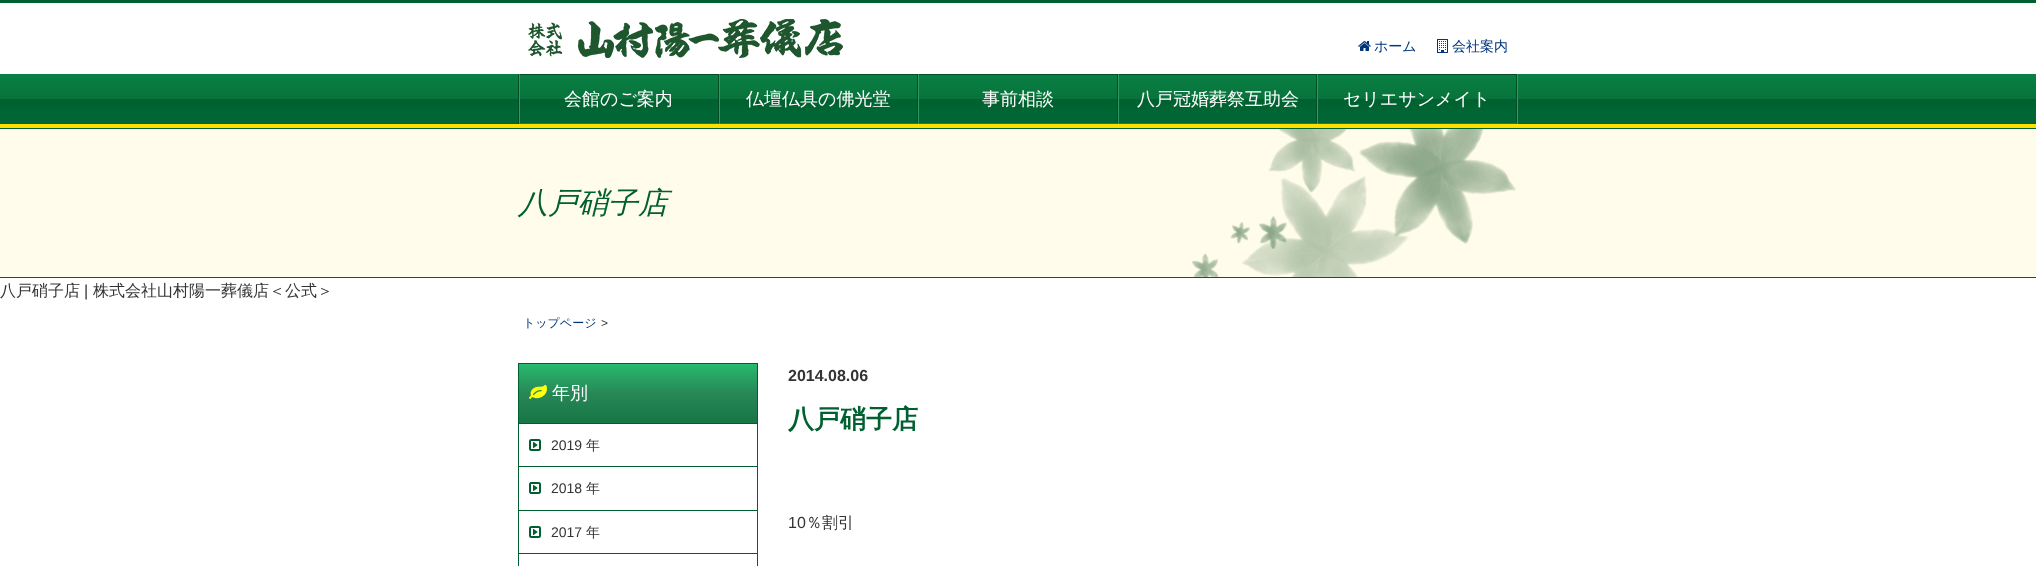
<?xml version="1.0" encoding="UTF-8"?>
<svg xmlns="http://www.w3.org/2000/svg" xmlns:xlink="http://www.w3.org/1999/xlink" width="2036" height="566">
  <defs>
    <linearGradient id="g1" gradientUnits="userSpaceOnUse" x1="1018" y1="124" x2="1018" y2="74"><stop offset="0.25" stop-color="#006633" /><stop offset="0.49" stop-color="#006030" /><stop offset="0.51" stop-color="#08733c" /><stop offset="1" stop-color="#088044" /></linearGradient>
    <linearGradient id="g2" gradientUnits="userSpaceOnUse" x1="638" y1="423" x2="638" y2="364"><stop offset="0" stop-color="#167646" /><stop offset="0.5" stop-color="#288757" /><stop offset="1" stop-color="#27ba6e" /></linearGradient>
  </defs>
  <rect width="100%" height="100%" fill="#ffffff" />
  <rect width="2036" height="3" fill="#006030" />
  <image x="528" y="19" width="315" height="39" xlink:href="image1.png" />
  <image x="1358" y="41" width="13" height="10" xlink:href="image2.png" />
  <image x="1437" y="39" width="11" height="14" xlink:href="image3.png" />
  <rect y="74" width="2036" height="50" fill="url(#g1)" />
  <rect y="124" width="2036" height="4" fill="#ffde00" />
  <rect x="1517" y="74" width="1" height="50" fill="#349866" />
  <rect x="518" y="74" width="1" height="50" fill="#004d26" />
  <rect x="519" y="74" width="998" height="1" fill="#004d26" />
  <rect x="718" y="74" width="1" height="50" fill="#004d26" />
  <rect x="519" y="123" width="200" height="1" fill="#009900" />
  <rect x="519" y="74" width="1" height="50" fill="#349866" />
  <rect x="917" y="74" width="1" height="50" fill="#004d26" />
  <rect x="719" y="123" width="199" height="1" fill="#009900" />
  <rect x="719" y="74" width="1" height="50" fill="#349866" />
  <rect x="1117" y="74" width="1" height="50" fill="#004d26" />
  <rect x="918" y="123" width="200" height="1" fill="#009900" />
  <rect x="918" y="74" width="1" height="50" fill="#349866" />
  <rect x="1316" y="74" width="1" height="50" fill="#004d26" />
  <rect x="1118" y="123" width="199" height="1" fill="#009900" />
  <rect x="1118" y="74" width="1" height="50" fill="#349866" />
  <rect x="1516" y="74" width="1" height="50" fill="#004d26" />
  <rect x="1317" y="123" width="200" height="1" fill="#009900" />
  <rect x="1317" y="74" width="1" height="50" fill="#349866" />
  <rect y="129" width="2036" height="148" fill="#fffceb" />
  <rect y="128" width="2036" height="1" fill="#006030" />
  <rect y="277" width="2036" height="1" fill="#006030" />
  <image x="1191" y="129" width="325" height="148" xlink:href="image4.png" />
  <rect x="519" y="364" width="238" height="59" fill="url(#g2)" />
  <rect x="518.5" y="363.5" width="239" height="60" fill="none" stroke="#005f2f" />
  <image x="529" y="384" width="18" height="15" xlink:href="image5.png" />
  <rect x="757" y="424" width="1" height="142" fill="#005f2f" />
  <rect x="518" y="466" width="240" height="1" fill="#005f2f" />
  <rect x="518" y="424" width="1" height="43" fill="#005f2f" />
  <image x="529" y="439" width="12" height="12" xlink:href="image6.png" />
  <rect x="518" y="510" width="240" height="1" fill="#005f2f" />
  <rect x="518" y="467" width="1" height="44" fill="#005f2f" />
  <image x="529" y="482" width="12" height="12" xlink:href="image6.png" />
  <rect x="518" y="553" width="240" height="1" fill="#005f2f" />
  <rect x="518" y="511" width="1" height="55" fill="#005f2f" />
  <image x="529" y="526" width="12" height="12" xlink:href="image6.png" />
  <text x="1374" y="51" style="font-family: WenQuanYi Zen Hei; font-size: 14px; font-weight: 500; fill: #00357c">ホーム</text>
  <text x="1452" y="51" style="font-family: WenQuanYi Zen Hei; font-size: 14px; font-weight: 500; fill: #00357c">会社案内</text>
  <text x="564" y="105" style="font-family: WenQuanYi Zen Hei; font-size: 18px; font-weight: 500; fill: #ffffff">会館のご案内</text>
  <text x="746" y="105" style="font-family: WenQuanYi Zen Hei; font-size: 18px; font-weight: 500; fill: #ffffff">仏壇仏具の佛光堂</text>
  <text x="982" y="105" style="font-family: WenQuanYi Zen Hei; font-size: 18px; font-weight: 500; fill: #ffffff">事前相談</text>
  <text x="1137" y="105" style="font-family: WenQuanYi Zen Hei; font-size: 18px; font-weight: 500; fill: #ffffff">八戸冠婚葬祭互助会</text>
  <text x="1343" y="105" style="font-family: WenQuanYi Zen Hei; font-size: 18px; font-weight: 500; fill: #ffffff">セリエサンメイト</text>
  <text x="518" y="213" style="font-family: WenQuanYi Zen Hei; font-size: 30px; font-weight: 500; font-style: italic; fill: #006030">八戸硝子店</text>
  <text x="0" y="296" style="font-family: WenQuanYi Zen Hei; font-size: 16px; font-weight: 500; fill: #333333">八戸硝子店</text>
  <text x="84" y="296" style="font-family: Liberation Sans; font-size: 16px; fill: #333333">|</text>
  <text x="93" y="296" style="font-family: WenQuanYi Zen Hei; font-size: 16px; font-weight: 500; fill: #333333">株式会社山村陽一葬儀店＜公式＞</text>
  <text x="523" y="327" style="font-family: WenQuanYi Zen Hei; font-size: 12px; font-weight: 500; fill: #00357c">トップページ</text>
  <text x="601" y="327" style="font-family: Liberation Sans; font-size: 12px; fill: #333333">&gt;</text>
  <text x="552" y="399" style="font-family: WenQuanYi Zen Hei; font-size: 18px; font-weight: 500; fill: #ffffff">年別</text>
  <text x="551" y="450" style="font-family: Liberation Sans; font-size: 14px; fill: #333333">2019</text>
  <text x="586" y="450" style="font-family: WenQuanYi Zen Hei; font-size: 14px; font-weight: 500; fill: #333333">年</text>
  <text x="551" y="493" style="font-family: Liberation Sans; font-size: 14px; fill: #333333">2018</text>
  <text x="586" y="493" style="font-family: WenQuanYi Zen Hei; font-size: 14px; font-weight: 500; fill: #333333">年</text>
  <text x="551" y="537" style="font-family: Liberation Sans; font-size: 14px; fill: #333333">2017</text>
  <text x="586" y="537" style="font-family: WenQuanYi Zen Hei; font-size: 14px; font-weight: 500; fill: #333333">年</text>
  <text x="788" y="381" style="font-family: Liberation Sans; font-size: 16px; font-weight: bold; fill: #333333">2014.08.06</text>
  <text x="788" y="428" style="font-family: WenQuanYi Zen Hei; font-size: 26px; font-weight: bold; fill: #006030">八戸硝子店</text>
  <text x="788" y="528" style="font-family: Liberation Sans; font-size: 16px; fill: #333333">10</text>
  <text x="806" y="528" style="font-family: WenQuanYi Zen Hei; font-size: 16px; font-weight: 500; fill: #333333">％割引</text>
</svg>
